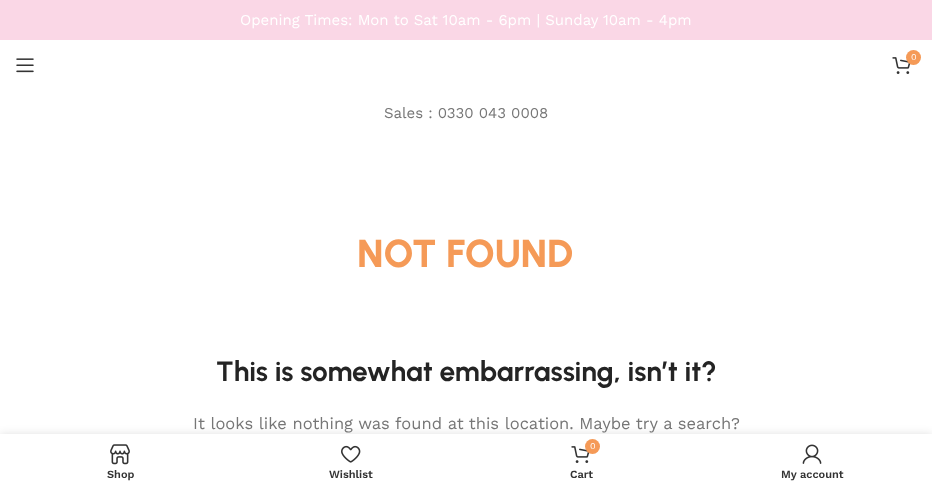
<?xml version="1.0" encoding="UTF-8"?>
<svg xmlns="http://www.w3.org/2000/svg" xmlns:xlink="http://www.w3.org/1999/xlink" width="932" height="489">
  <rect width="100%" height="100%" fill="#ffffff" />
  <rect width="932" height="40" fill="#fad7e6" />
  <image x="16" y="58" width="18" height="15" xlink:href="image1.png" />
  <image x="892" y="57" width="19" height="17" xlink:href="image2.png" />
  <circle cx="913.5" cy="57.5" r="7.5" fill="#f59a57" />
  <rect y="434" width="932" height="55" fill="#000000" fill-opacity="0.12" filter="blur(4.5px)" />
  <rect y="434" width="932" height="55" fill="#ffffff" />
  <image x="110" y="444" width="20" height="21" xlink:href="image3.png" />
  <image x="341" y="445" width="20" height="18" xlink:href="image4.png" />
  <image x="571" y="446" width="19" height="17" xlink:href="image2.png" />
  <circle cx="592.5" cy="446.5" r="7.5" fill="#f59a57" />
  <image x="802" y="444" width="20" height="20" xlink:href="image5.png" />
  <text x="240" y="25" style="font-family: Work Sans; font-size: 15px; fill: #ffffff">Opening Times: Mon to Sat 10am - 6pm | Sunday 10am - 4pm</text>
  <text x="911" y="60" style="font-family: Work Sans; font-size: 9px; fill: #ffffff">0</text>
  <text x="384" y="118" style="font-family: Work Sans; font-size: 15px; fill: #767676">Sales : 0330 043 0008</text>
  <text x="357" y="267" style="font-family: Urbanist; font-size: 39px; font-weight: 800; fill: #f59a57">NOT FOUND</text>
  <text x="216" y="381" style="font-family: Urbanist; font-size: 28px; font-weight: bold; fill: #242424">This is somewhat embarrassing, isn’t it?</text>
  <text x="193" y="429" style="font-family: Work Sans; font-size: 16.5px; fill: #767676">It looks like nothing was found at this location. Maybe try a search?</text>
  <text x="107" y="478" style="font-family: Work Sans; font-size: 11px; font-weight: 600; fill: #333333">Shop</text>
  <text x="329" y="478" style="font-family: Work Sans; font-size: 11px; font-weight: 600; fill: #333333">Wishlist</text>
  <text x="590" y="449" style="font-family: Work Sans; font-size: 9px; fill: #ffffff">0</text>
  <text x="570" y="478" style="font-family: Work Sans; font-size: 11px; font-weight: 600; fill: #333333">Cart</text>
  <text x="781" y="478" style="font-family: Work Sans; font-size: 11px; font-weight: 600; fill: #333333">My account</text>
</svg>
